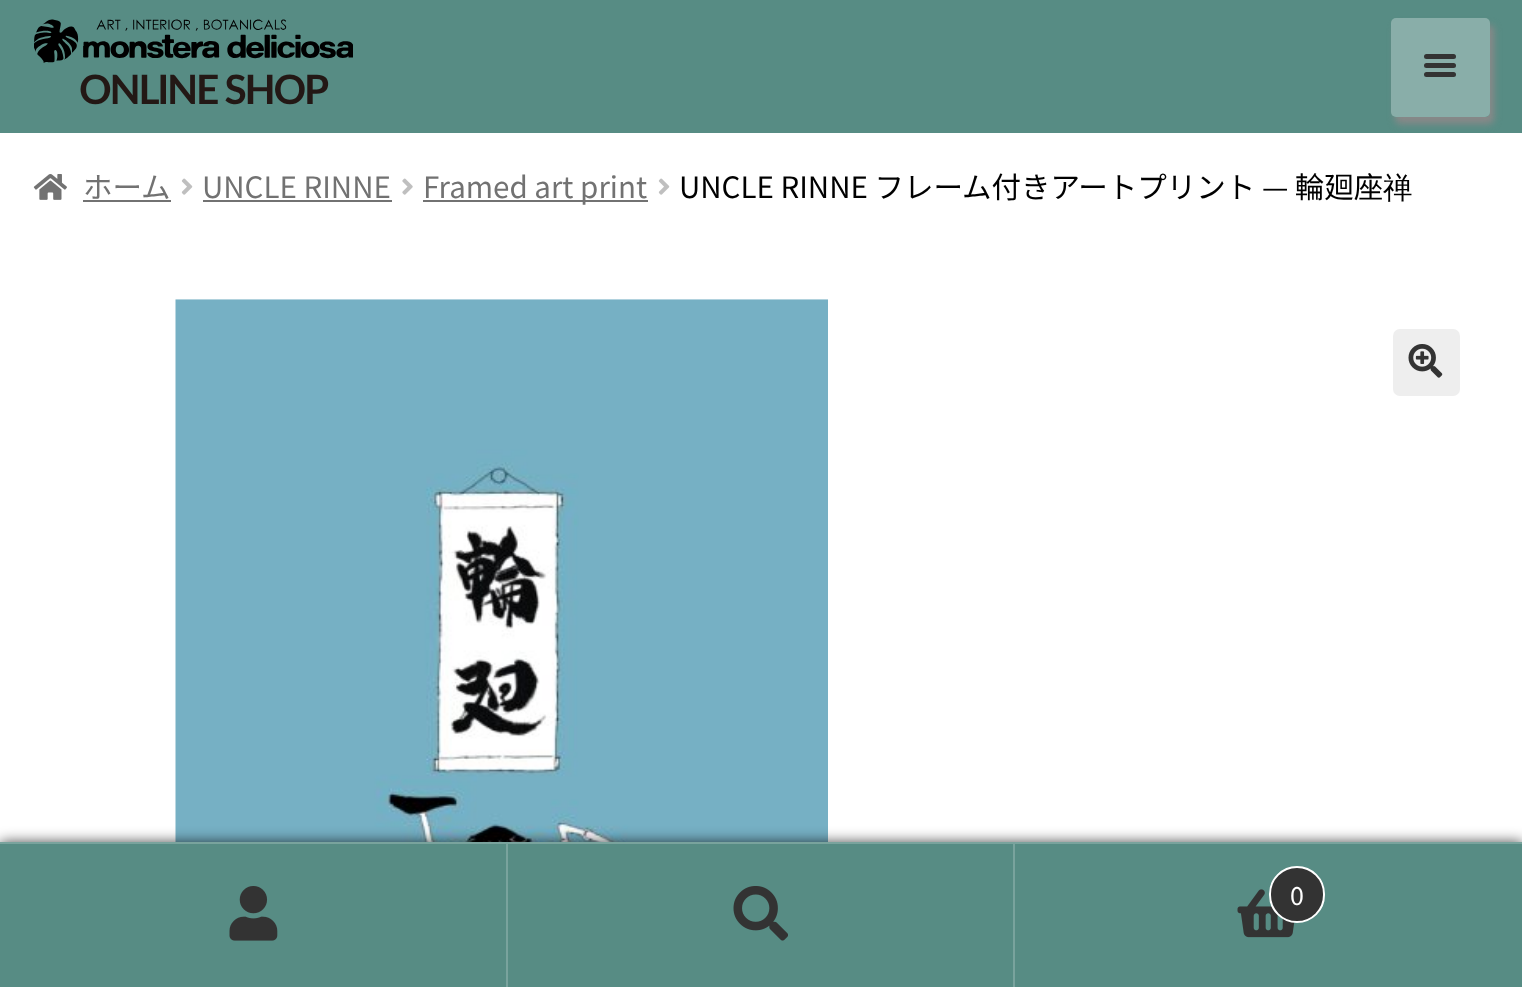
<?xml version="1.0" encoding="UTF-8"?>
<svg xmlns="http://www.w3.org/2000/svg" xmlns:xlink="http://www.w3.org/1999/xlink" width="1522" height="987">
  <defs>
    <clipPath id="clip1"><path d="M 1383 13 h 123 v 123 h -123 z m 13 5 h 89 c 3 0 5 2 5 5 v 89 c 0 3 -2 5 -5 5 h -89 c -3 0 -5 -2 -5 -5 v -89 c 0 -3 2 -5 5 -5 z" clip-rule="evenodd" /></clipPath>
  </defs>
  <rect width="100%" height="100%" fill="#ffffff" />
  <rect width="1522" height="133" fill="#578c84" />
  <image x="34" y="19" width="319" height="44" xlink:href="image1.png" />
  <g clip-path="url(#clip1)">
    <rect x="1395" y="25" width="99" height="99" rx="5" fill="#888888" filter="blur(3.5px)" />
  </g>
  <rect x="1391" y="18" width="99" height="99" rx="5" fill="#ffffff" fill-opacity="0.3" />
  <rect x="1424" y="54" width="32" height="5" rx="2.5" fill="#333333" />
  <rect x="1424" y="63" width="32" height="5" rx="2.5" fill="#333333" />
  <rect x="1424" y="72" width="32" height="5" rx="2.5" fill="#333333" />
  <image x="33" y="174" width="34" height="26" xlink:href="image2.png" />
  <rect x="83" y="200" width="88" height="2" fill="#727272" />
  <image x="181" y="178" width="12" height="17" xlink:href="image3.png" />
  <rect x="203" y="200" width="189" height="2" fill="#727272" />
  <image x="402" y="178" width="11" height="17" xlink:href="image4.png" />
  <rect x="423" y="200" width="225" height="2" fill="#727272" />
  <image x="658" y="178" width="12" height="17" xlink:href="image3.png" />
  <image x="175" y="299" width="653" height="543" xlink:href="image5.png" />
  <rect x="1393" y="329" width="67" height="67" rx="7" fill="#eeeeee" />
  <image x="1408" y="344" width="35" height="34" xlink:href="image6.png" />
  <rect y="842" width="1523" height="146" fill="#000000" fill-opacity="0.7" filter="blur(7px)" />
  <rect y="842" width="1522" height="2" fill="#79a39d" />
  <rect y="844" width="1013" height="143" fill="#578c84" />
  <rect x="506" y="844" width="2" height="143" fill="#79a39d" />
  <image x="229" y="886" width="49" height="55" xlink:href="image7.png" />
  <rect x="1013" y="844" width="2" height="143" fill="#79a39d" />
  <image x="733" y="886" width="55" height="55" xlink:href="image8.png" />
  <rect x="1015" y="844" width="507" height="143" fill="#578c84" />
  <image x="1237" y="889" width="58" height="49" xlink:href="image9.png" />
  <rect x="1270" y="867" width="54" height="55" rx="27" fill="#333333" stroke="#ffffff" stroke-width="2" />
  <text x="79" y="104" style="font-family: Lato; font-size: 40.5px; font-weight: bold; letter-spacing: -2.25px; fill: #231815">ONLINE SHOP</text>
  <text x="83" y="198" style="font-family: Noto Sans TC; font-size: 29.5px; fill: #727272">ホーム</text>
  <text x="202" y="198" style="font-family: Noto Sans TC; font-size: 29.5px; fill: #727272">UNCLE RINNE</text>
  <text x="423" y="198" style="font-family: Noto Sans TC; font-size: 29.5px; fill: #727272">Framed art print</text>
  <text x="679" y="198" style="font-family: Noto Sans TC; font-size: 29.5px; fill: #000000">UNCLE RINNE フレーム付きアートプリント — 輪廻座</text>
  <text x="1383" y="198" style="font-family: WenQuanYi Zen Hei; font-size: 29.5px; font-weight: 500; fill: #000000">禅</text>
  <text x="1290" y="905" style="font-family: Noto Sans TC; font-size: 25px; fill: #ffffff">0</text>
</svg>
